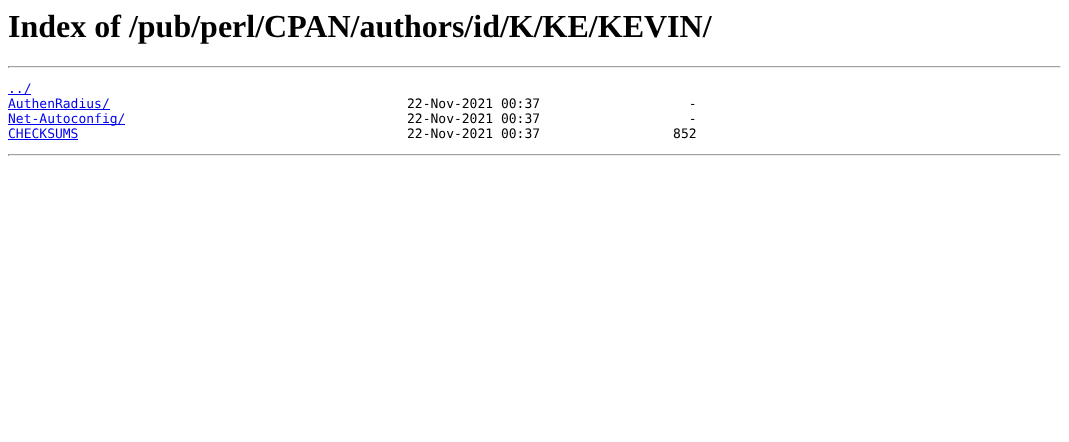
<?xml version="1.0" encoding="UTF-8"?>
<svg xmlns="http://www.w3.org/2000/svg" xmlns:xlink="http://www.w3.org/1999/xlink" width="1069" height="442">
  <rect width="100%" height="100%" fill="#ffffff" />
  <rect x="8" y="66" width="1053" height="1" fill="#9f9f9f" />
  <rect x="1060" y="66" width="1" height="2" fill="#eeeeee" />
  <rect x="8" y="67" width="1053" height="1" fill="#eeeeee" />
  <rect x="8" y="66" width="1" height="2" fill="#9f9f9f" />
  <rect x="8" y="94" width="23" height="1" fill="#0000ee" />
  <rect x="8" y="109" width="102" height="1" fill="#0000ee" />
  <rect x="8" y="124" width="117" height="1" fill="#0000ee" />
  <rect x="8" y="139" width="70" height="1" fill="#0000ee" />
  <rect x="8" y="154" width="1053" height="1" fill="#9f9f9f" />
  <rect x="1060" y="154" width="1" height="2" fill="#eeeeee" />
  <rect x="8" y="155" width="1053" height="1" fill="#eeeeee" />
  <rect x="8" y="154" width="1" height="2" fill="#9f9f9f" />
  <text x="8" y="37" style="font-family: Liberation Serif; font-size: 32px; font-weight: bold; fill: #000000">Index of /pub/perl/CPAN/authors/id/K/KE/KEVIN/</text>
  <text x="8" y="93" style="font-family: DejaVu Sans Mono; font-size: 13px; fill: #0000ee">../</text>
  <text x="8" y="108" style="font-family: DejaVu Sans Mono; font-size: 13px; fill: #0000ee">AuthenRadius/</text>
  <text x="407" y="108" style="font-family: DejaVu Sans Mono; font-size: 13px; fill: #000000" xml:space="preserve">22-Nov-2021 00:37                   -</text>
  <text x="8" y="123" style="font-family: DejaVu Sans Mono; font-size: 13px; fill: #0000ee">Net-Autoconfig/</text>
  <text x="407" y="123" style="font-family: DejaVu Sans Mono; font-size: 13px; fill: #000000" xml:space="preserve">22-Nov-2021 00:37                   -</text>
  <text x="8" y="138" style="font-family: DejaVu Sans Mono; font-size: 13px; fill: #0000ee">CHECKSUMS</text>
  <text x="407" y="138" style="font-family: DejaVu Sans Mono; font-size: 13px; fill: #000000" xml:space="preserve">22-Nov-2021 00:37                 852</text>
</svg>
